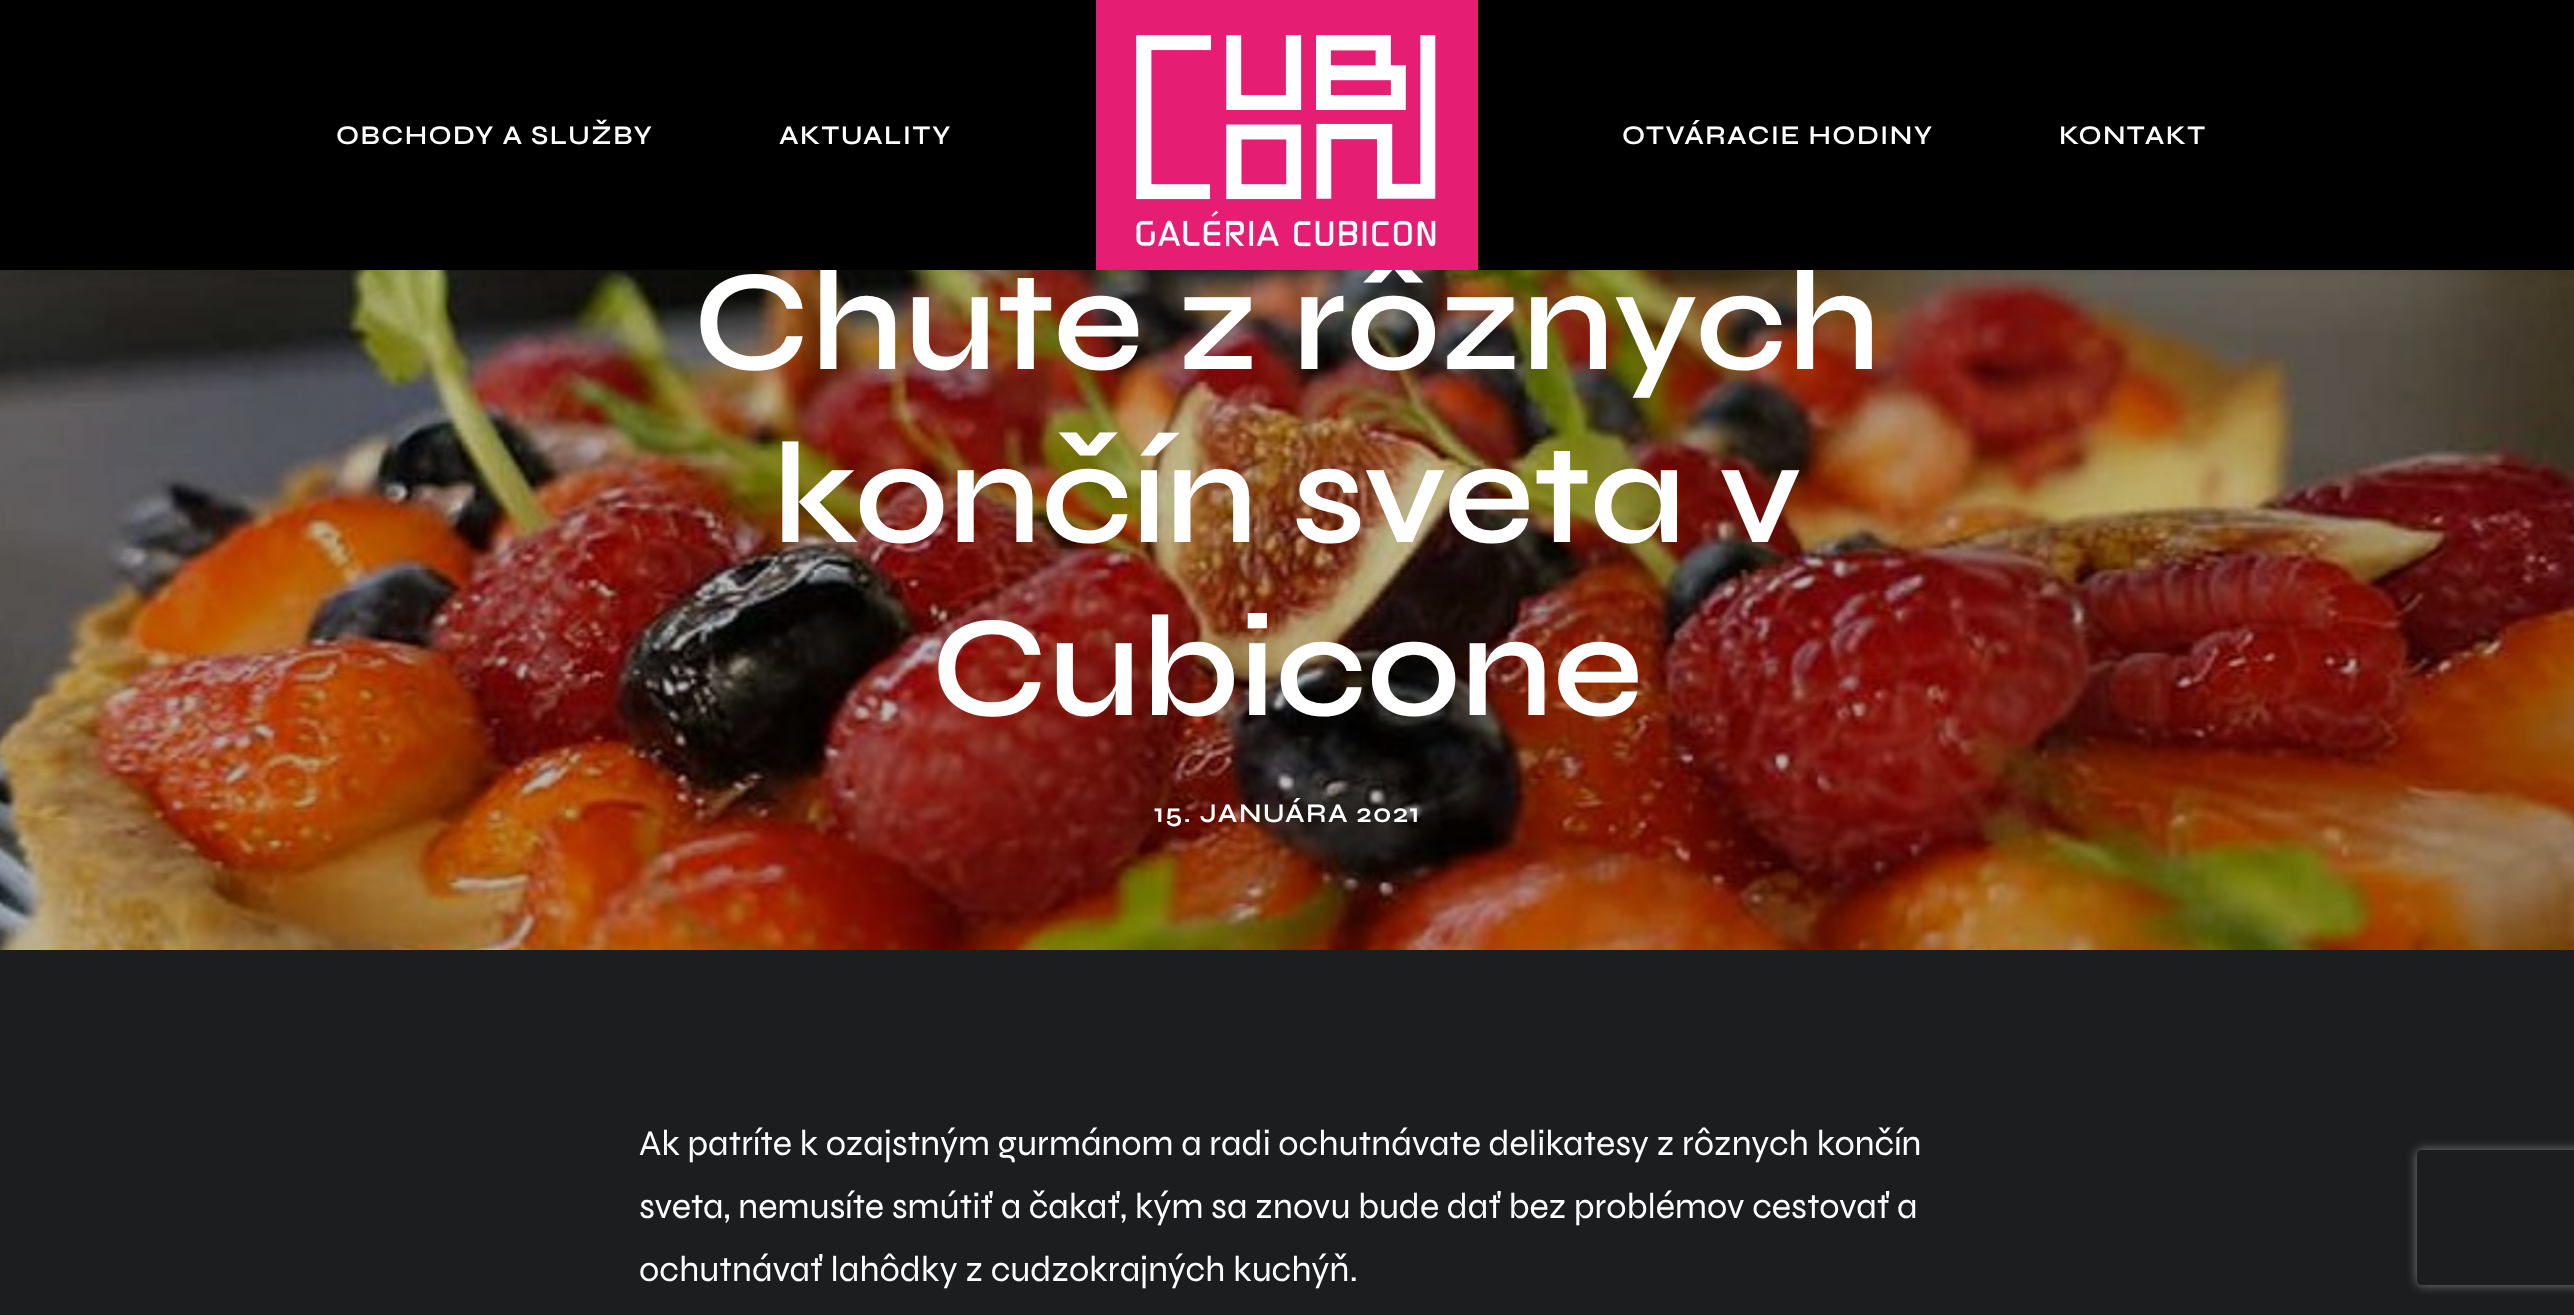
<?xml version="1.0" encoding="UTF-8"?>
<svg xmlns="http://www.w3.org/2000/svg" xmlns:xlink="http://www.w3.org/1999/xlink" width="2574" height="1315">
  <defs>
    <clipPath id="clip1"><path d="M 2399 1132 h 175 v 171 h -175 z m 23 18 h 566 c 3 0 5 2 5 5 v 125 c 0 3 -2 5 -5 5 h -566 c -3 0 -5 -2 -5 -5 v -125 c 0 -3 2 -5 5 -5 z" clip-rule="evenodd" /></clipPath>
  </defs>
  <rect width="100%" height="100%" fill="#ffffff" />
  <image x="0" y="270" width="2574" height="680" xlink:href="image2.png" />
  <rect x="14" y="32" width="2547" height="225" fill="#000000" fill-opacity="0.6" filter="blur(11px)" />
  <rect y="950" width="2574" height="365" fill="#1b1d1f" />
  <g clip-path="url(#clip1)">
    <rect x="2417" y="1150" width="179" height="135" rx="5" fill="#808080" filter="blur(5.5px)" />
  </g>
  <text x="693" y="369" style="font-family: Syne; font-size: 144px; font-weight: 600; fill: #ffffff">Chute z rôznych</text>
  <rect width="2574" height="270" fill="#000000" />
  <text x="2059" y="144" style="font-family: Syne; font-size: 27px; font-weight: 600; letter-spacing: 1.4px; fill: #ffffff">KONTAKT</text>
  <text x="1622" y="144" style="font-family: Syne; font-size: 27px; font-weight: 600; letter-spacing: 1.4px; fill: #ffffff">OTVÁRACIE HODINY</text>
  <image x="1096" y="0" width="382" height="270" xlink:href="image1.png" />
  <text x="779" y="144" style="font-family: Syne; font-size: 27px; font-weight: 600; letter-spacing: 1.4px; fill: #ffffff">AKTUALITY</text>
  <text x="336" y="144" style="font-family: Syne; font-size: 27px; font-weight: 600; letter-spacing: 1.4px; fill: #ffffff">OBCHODY A SLUŽBY</text>
  <text x="772" y="542" style="font-family: Syne; font-size: 144px; font-weight: 600; fill: #ffffff">končín sveta v</text>
  <text x="931" y="715" style="font-family: Syne; font-size: 144px; font-weight: 600; fill: #ffffff">Cubicone</text>
  <text x="1154" y="822" style="font-family: Syne; font-size: 27px; font-weight: 600; letter-spacing: 1.4px; fill: #ffffff">15. JANUÁRA 2021</text>
  <text x="639" y="1155" style="font-family: Syne; font-size: 36px; fill: #ffffff">Ak patríte k ozajstným gurmánom a radi ochutnávate delikatesy z rôznych končín</text>
  <text x="639" y="1218" style="font-family: Syne; font-size: 36px; fill: #ffffff">sveta, nemusíte smútiť a čakať, kým sa znovu bude dať bez problémov cestovať a</text>
  <text x="639" y="1281" style="font-family: Syne; font-size: 36px; fill: #ffffff">ochutnávať lahôdky z cudzokrajných kuchýň.</text>
</svg>
